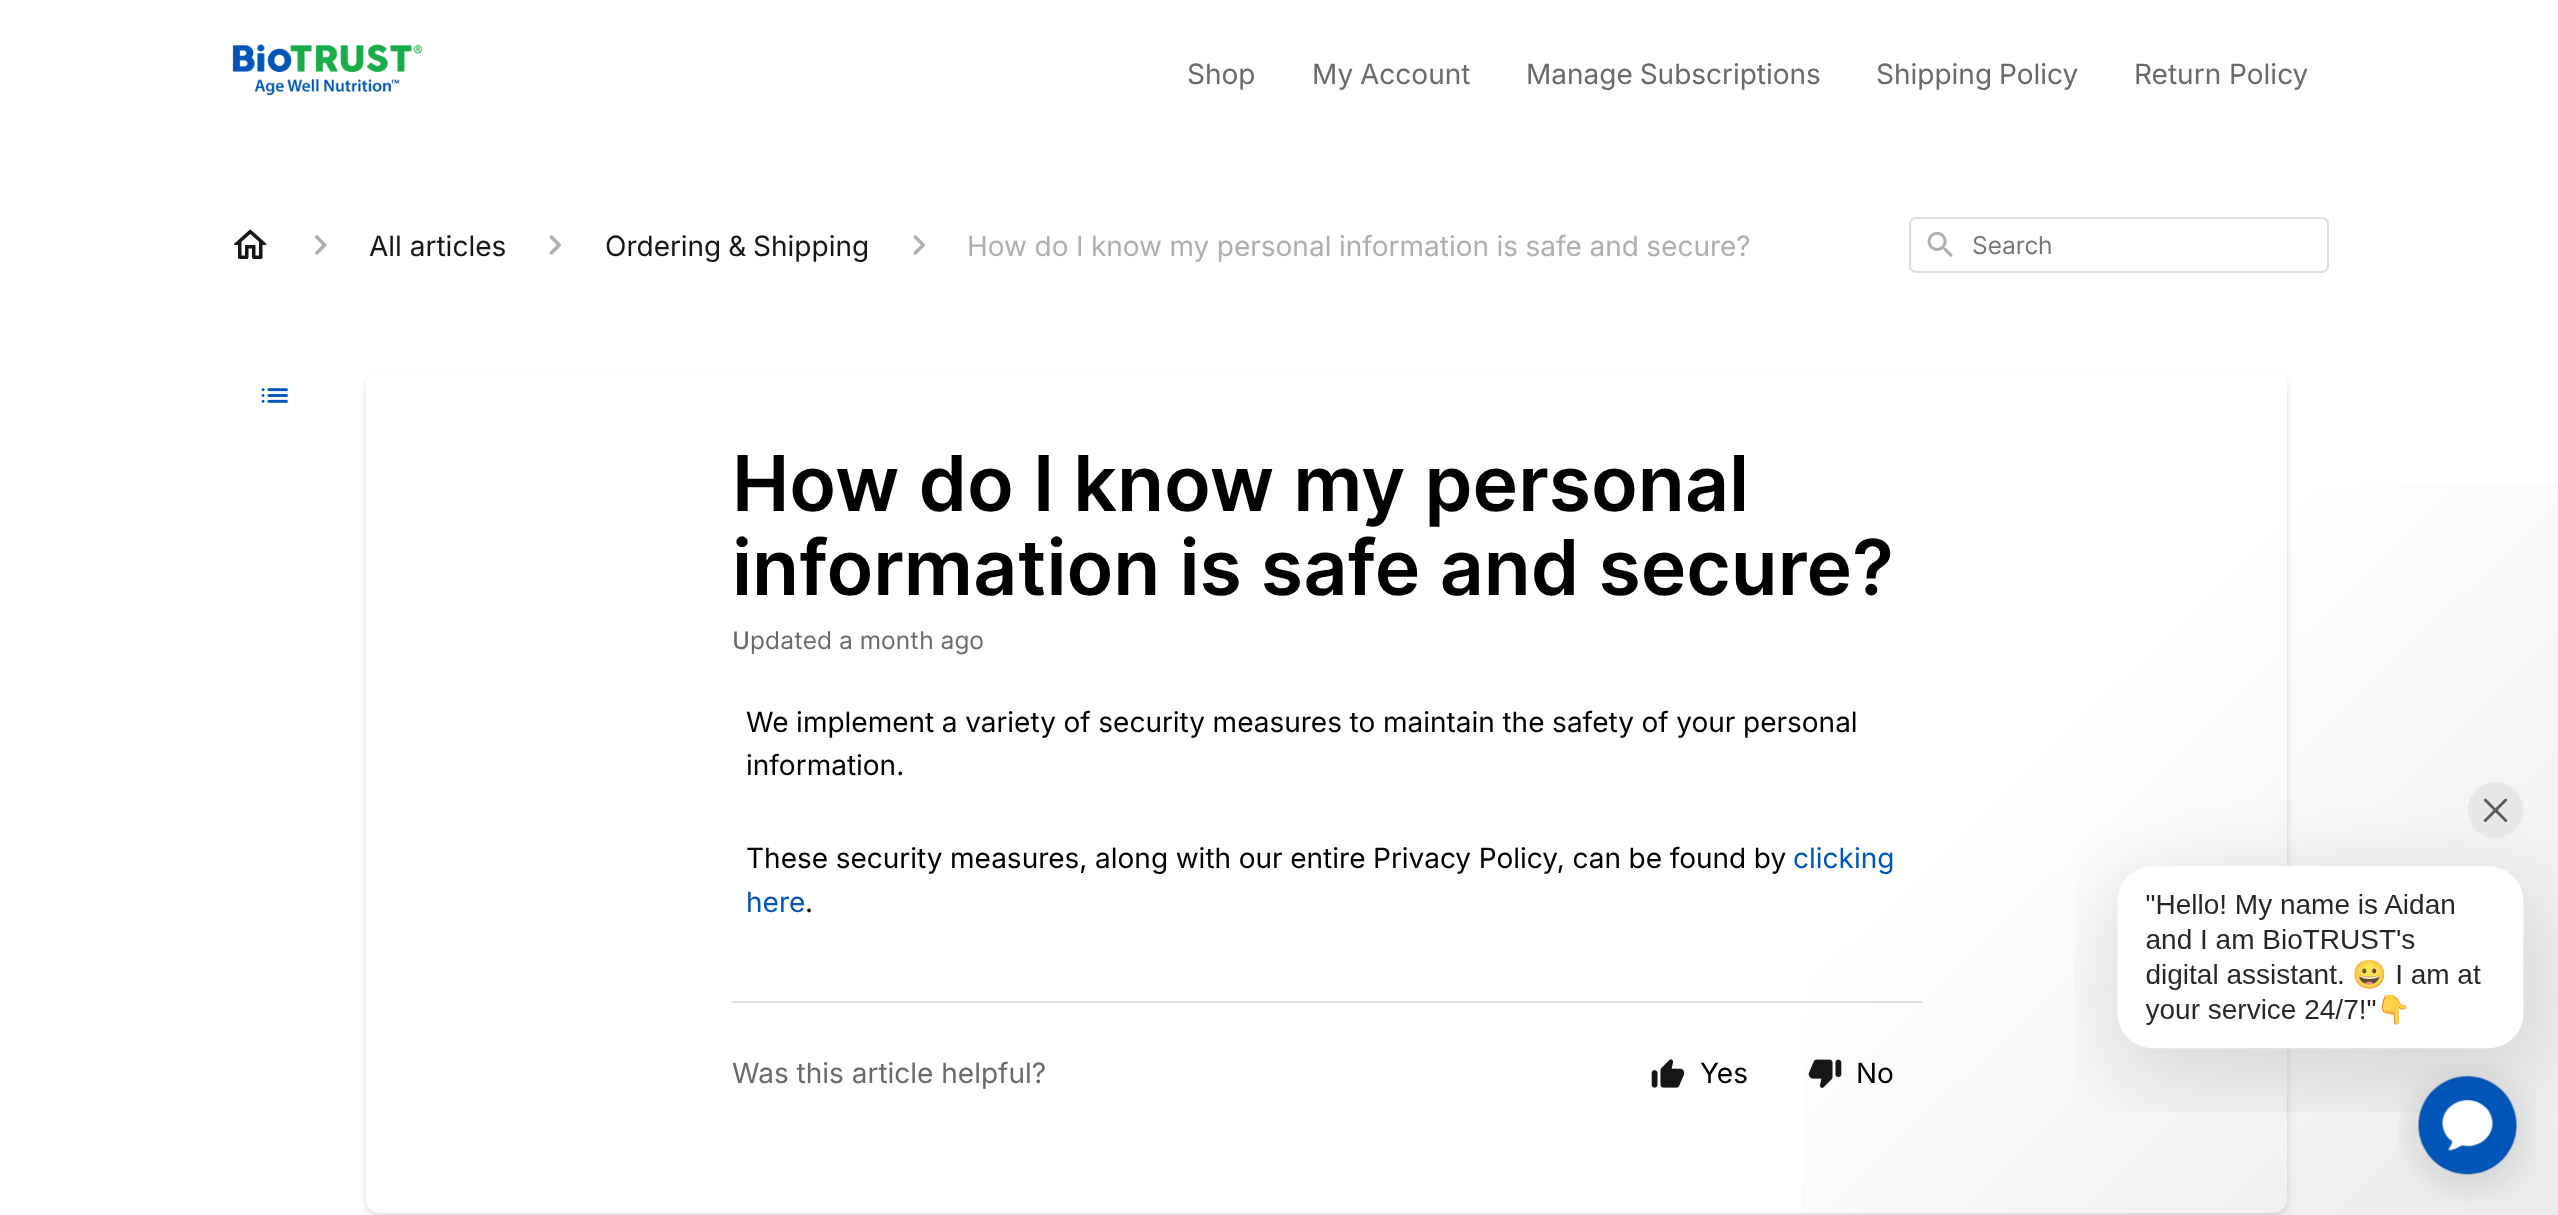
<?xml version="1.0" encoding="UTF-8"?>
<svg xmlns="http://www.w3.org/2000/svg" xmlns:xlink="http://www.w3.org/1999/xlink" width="2558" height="1215">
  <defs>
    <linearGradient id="g1" gradientUnits="userSpaceOnUse" x1="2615" y1="1162" x2="1391" y2="-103"><stop offset="0" stop-color="#000000" stop-opacity="0.08" /><stop offset="0.41" stop-color="#000000" stop-opacity="0" /></linearGradient>
  </defs>
  <rect width="100%" height="100%" fill="#ffffff" />
  <image x="232" y="44" width="191" height="52" xlink:href="image1.png" />
  <image x="234" y="229" width="33" height="30" xlink:href="image2.png" />
  <image x="315" y="235" width="12" height="20" xlink:href="image3.png" />
  <image x="549" y="235" width="12" height="20" xlink:href="image4.png" />
  <image x="913" y="235" width="12" height="20" xlink:href="image4.png" />
  <rect x="1910" y="218" width="418" height="54" rx="6" fill="none" stroke="#dddddd" stroke-width="2" />
  <image x="1927" y="231" width="26" height="26" xlink:href="image5.png" />
  <image x="261" y="388" width="27" height="15" xlink:href="image6.png" />
  <rect x="366" y="375" width="1921" height="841" rx="14" fill="#161616" fill-opacity="0.16" filter="blur(3.5px)" />
  <rect x="366" y="371" width="1921" height="842" rx="14" fill="#ffffff" />
  <rect x="732" y="1001" width="1190" height="2" fill="#dddddd" />
  <image x="1651" y="1059" width="34" height="29" xlink:href="image7.png" />
  <image x="1808" y="1059" width="34" height="29" xlink:href="image8.png" />
  <rect x="1803" y="484" width="755" height="731" fill="url(#g1)" />
  <image x="2075" y="782" width="483" height="330" xlink:href="image9.png" />
  <image x="2399" y="1064" width="137" height="137" xlink:href="image10.png" />
  <text x="1187" y="84" style="font-family: Inter; font-size: 28px; fill: #6a6a6a">Shop</text>
  <text x="1312" y="84" word-spacing="-1" style="font-family: Inter; font-size: 28px; fill: #6a6a6a">My Account</text>
  <text x="1526" y="84" word-spacing="-1" style="font-family: Inter; font-size: 28px; fill: #6a6a6a">Manage Subscriptions</text>
  <text x="1876" y="84" word-spacing="-1" style="font-family: Inter; font-size: 28px; fill: #6a6a6a">Shipping Policy</text>
  <text x="2134" y="84" style="font-family: Inter; font-size: 28px; fill: #6a6a6a">Return Policy</text>
  <text x="369" y="256" style="font-family: Inter; font-size: 28px; fill: #161616">All articles</text>
  <text x="605" y="256" word-spacing="-1" style="font-family: Inter; font-size: 28px; fill: #161616">Ordering &amp; Shipping</text>
  <text x="967" y="256" word-spacing="-0.4" style="font-family: Inter; font-size: 28px; fill: #afafaf">How do I know my personal information is safe and secure?</text>
  <text x="1972" y="254" style="font-family: 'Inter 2'; font-size: 24.5px; fill: #757575">Search</text>
  <text x="732" y="511" style="font-family: Inter; font-size: 77px; font-weight: 600; fill: #000000">How do I know my personal</text>
  <text x="732" y="595" style="font-family: Inter; font-size: 77px; font-weight: 600; fill: #000000">information is safe and secure?</text>
  <text x="732" y="649" style="font-family: Noto Sans; font-size: 24.5px; font-weight: 500; fill: #6a6a6a">U</text>
  <text x="750" y="649" style="font-family: 'Inter 2'; font-size: 24.5px; fill: #6a6a6a">pdated a month ago</text>
  <text x="746" y="732" word-spacing="-0.25" style="font-family: Inter; font-size: 28px; fill: #000000">We implement a variety of security measures to maintain the safety of your personal</text>
  <text x="746" y="775" style="font-family: Inter; font-size: 28px; fill: #000000">information.</text>
  <text x="746" y="868" word-spacing="-0.25" style="font-family: Inter; font-size: 28px; fill: #000000">These security measures, along with our entire Privacy Policy, can be found by</text>
  <text x="1793" y="868" style="font-family: Inter; font-size: 28px; fill: #0056b8">clicking</text>
  <text x="746" y="912" style="font-family: Inter; font-size: 28px; fill: #0056b8">here</text>
  <text x="805" y="912" style="font-family: Inter; font-size: 28px; fill: #000000">.</text>
  <text x="732" y="1083" style="font-family: Inter; font-size: 28px; fill: #6a6a6a">Was this article helpful?</text>
  <text x="1700" y="1083" style="font-family: Inter; font-size: 28px; fill: #000000">Yes</text>
  <text x="1856" y="1083" style="font-family: Inter; font-size: 28px; fill: #000000">No</text>
</svg>
